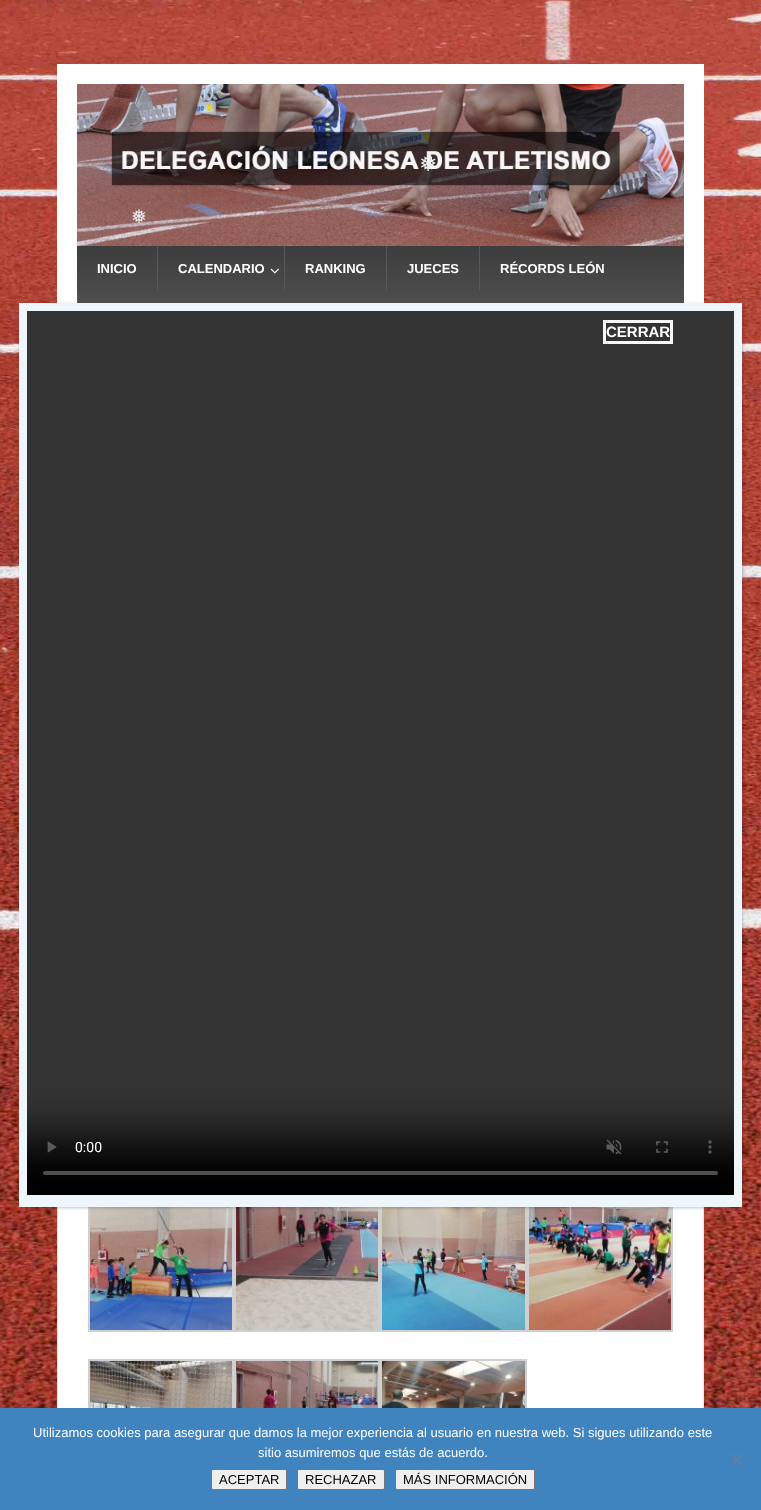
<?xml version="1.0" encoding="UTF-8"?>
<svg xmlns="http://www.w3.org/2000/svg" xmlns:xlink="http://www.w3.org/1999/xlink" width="761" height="1510">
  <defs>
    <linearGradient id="g1" gradientUnits="userSpaceOnUse" x1="381" y1="336" x2="381" y2="246"><stop offset="0" stop-color="#585858" /><stop offset="1" stop-color="#3d3d3d" /></linearGradient>
  </defs>
  <rect width="100%" height="100%" fill="#ffffff" />
  <image x="0" y="0" width="761" height="1408" xlink:href="image1.png" />
  <rect x="57" y="64" width="647" height="239" fill="#ffffff" />
  <image x="77" y="84" width="607" height="162" xlink:href="image2.png" />
  <rect x="77" y="246" width="607" height="57" fill="url(#g1)" />
  <rect x="157" y="246" width="1" height="45" fill="#585858" />
  <image x="270" y="268" width="9" height="6" xlink:href="image3.png" />
  <rect x="284" y="246" width="1" height="45" fill="#585858" />
  <rect x="386" y="246" width="1" height="45" fill="#585858" />
  <rect x="479" y="246" width="1" height="45" fill="#585858" />
  <rect x="77" y="291" width="1" height="12" fill="#585858" />
  <rect x="58" y="1207" width="645" height="201" fill="#ffffff" />
  <rect x="703" y="1207" width="1" height="201" fill="#e5e5e5" />
  <rect x="57" y="1207" width="1" height="201" fill="#e5e5e5" />
  <rect x="89" y="1187" width="144" height="144" fill="none" stroke="#cfcfcf" stroke-width="2" />
  <image x="90" y="1207" width="142" height="123" xlink:href="image4.png" />
  <rect x="235" y="1187" width="144" height="144" fill="none" stroke="#cfcfcf" stroke-width="2" />
  <image x="236" y="1207" width="142" height="123" xlink:href="image5.png" />
  <rect x="381" y="1187" width="145" height="144" fill="none" stroke="#cfcfcf" stroke-width="2" />
  <image x="382" y="1207" width="143" height="123" xlink:href="image6.png" />
  <rect x="528" y="1187" width="144" height="144" fill="none" stroke="#cfcfcf" stroke-width="2" />
  <image x="529" y="1207" width="142" height="123" xlink:href="image7.png" />
  <rect x="89" y="1360" width="144" height="144" fill="none" stroke="#cfcfcf" stroke-width="2" />
  <image x="90" y="1361" width="142" height="47" xlink:href="image8.png" />
  <rect x="235" y="1360" width="144" height="144" fill="none" stroke="#cfcfcf" stroke-width="2" />
  <image x="236" y="1361" width="142" height="47" xlink:href="image9.png" />
  <rect x="381" y="1360" width="145" height="144" fill="none" stroke="#cfcfcf" stroke-width="2" />
  <image x="382" y="1361" width="143" height="47" xlink:href="image10.png" />
  <rect x="20" y="304" width="723" height="904" fill="#020202" fill-opacity="0.23" filter="blur(1.5px)" />
  <rect x="19" y="303" width="723" height="904" fill="#eef6fc" />
  <image x="27" y="311" width="707" height="884" xlink:href="image11.png" />
  <path d="M 604.5 321.5 h 67 v 21 h -67 z" fill="none" stroke="#f7f7f7" stroke-width="3" />
  <rect y="1408" width="761" height="102" fill="#3f83bf" />
  <path d="M 741.5 1453.5 l 1.5 1.5 l -10.5 10.5 l -1.5 -1.5 z" fill="#6082a0" />
  <path d="M 731 1455 l 1.5 -1.5 l 10.5 10.5 l -1.5 1.5 z" fill="#6082a0" />
  <rect x="211.5" y="1469.5" width="75" height="20" rx="1.5" fill="#efefef" stroke="#767676" />
  <rect x="297.5" y="1469.5" width="87" height="20" rx="1.5" fill="#efefef" stroke="#767676" />
  <rect x="395.5" y="1469.5" width="139" height="20" rx="1.5" fill="#efefef" stroke="#767676" />
  <text x="419" y="171" style="font-family: DejaVu Sans; font-size: 22px; fill: #efefef">❅</text>
  <text x="131" y="223" style="font-family: DejaVu Sans; font-size: 19px; fill: #efefef">❅</text>
  <text x="97" y="273" style="font-family: Liberation Sans; font-size: 13px; font-weight: bold; fill: #ffffff">INICIO</text>
  <text x="178" y="273" style="font-family: Liberation Sans; font-size: 13px; font-weight: bold; fill: #ffffff">CALENDARIO</text>
  <text x="305" y="273" style="font-family: Liberation Sans; font-size: 13px; font-weight: bold; fill: #ffffff">RANKING</text>
  <text x="407" y="273" style="font-family: Liberation Sans; font-size: 13px; font-weight: bold; fill: #ffffff">JUECES</text>
  <text x="500" y="273" style="font-family: Liberation Sans; font-size: 13px; font-weight: bold; fill: #ffffff">RÉCORDS LEÓN</text>
  <text x="606" y="337" style="font-family: Liberation Sans; font-size: 15px; font-weight: bold; fill: #ffffff">CERRAR</text>
  <text x="33" y="1437" style="font-family: Liberation Sans; font-size: 13px; fill: #ffffff">Utilizamos cookies para asegurar que damos la mejor experiencia al usuario en nuestra web. Si sigues utilizando este</text>
  <text x="258" y="1457" style="font-family: Liberation Sans; font-size: 13px; fill: #ffffff">sitio asumiremos que estás de acuerdo.</text>
  <text x="219" y="1484" style="font-family: Liberation Sans; font-size: 13px; fill: #000000">ACEPTAR</text>
  <text x="305" y="1484" style="font-family: Liberation Sans; font-size: 13px; fill: #000000">RECHAZAR</text>
  <text x="403" y="1484" style="font-family: Liberation Sans; font-size: 13px; fill: #000000">MÁS INFORMACIÓN</text>
</svg>
